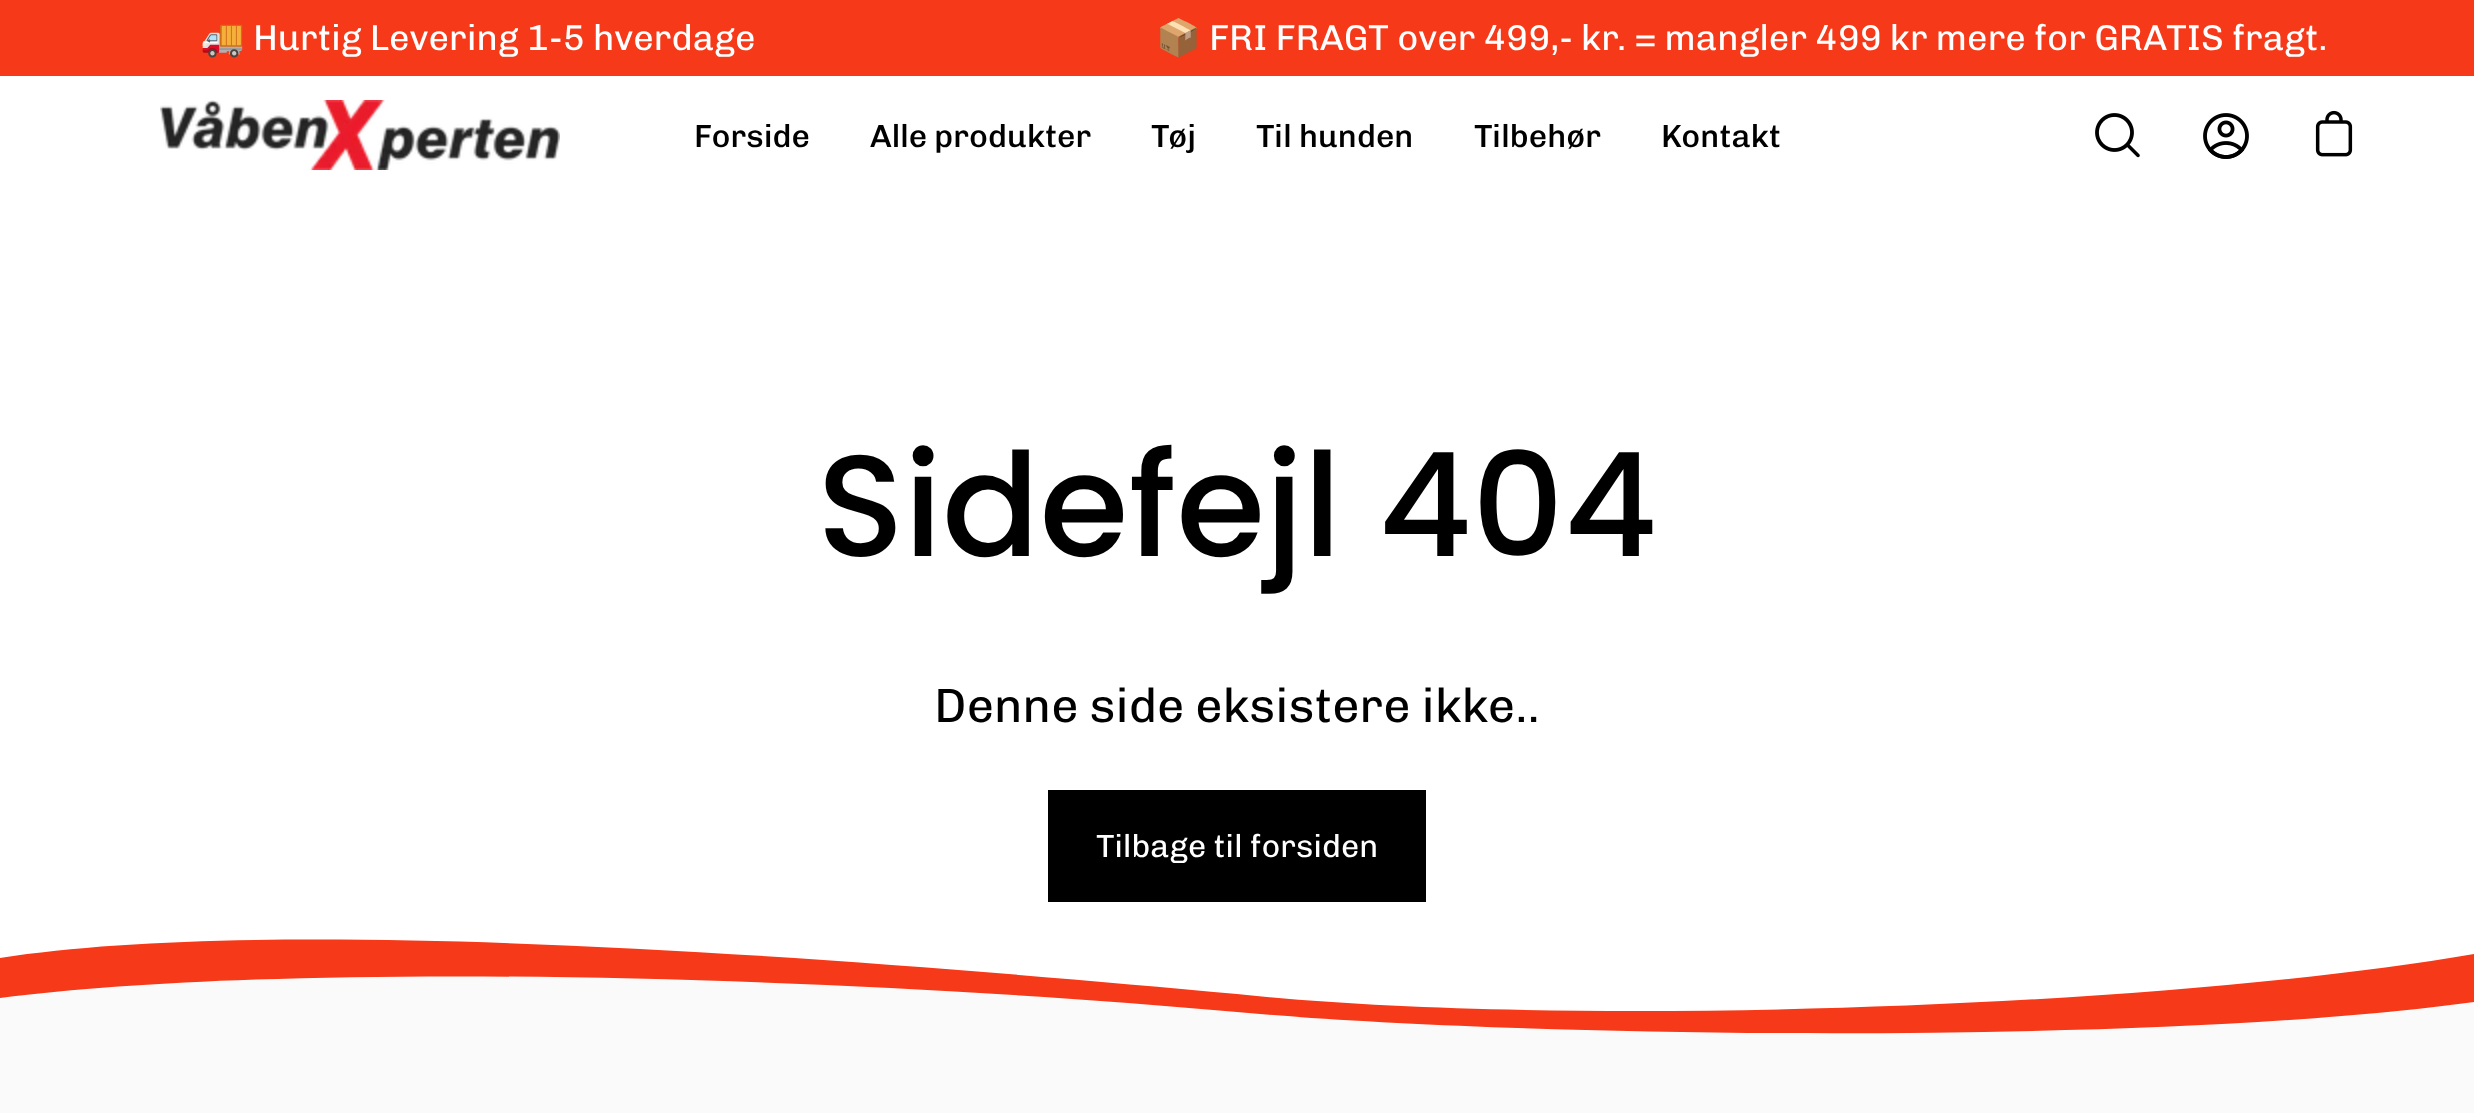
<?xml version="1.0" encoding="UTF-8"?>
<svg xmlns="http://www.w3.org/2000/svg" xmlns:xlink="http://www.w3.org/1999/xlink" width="2474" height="1113">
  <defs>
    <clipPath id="clip1"><rect x="1156" y="12" width="1172" height="54" /></clipPath>
  </defs>
  <rect width="100%" height="100%" fill="#ffffff" />
  <rect width="2474" height="76" fill="#f53919" />
  <image x="160" y="100" width="400" height="70" xlink:href="image1.png" />
  <image x="2095" y="113" width="45" height="45" xlink:href="image2.png" />
  <image x="2203" y="113" width="46" height="46" xlink:href="image3.png" />
  <image x="2315" y="110" width="38" height="47" xlink:href="image4.png" />
  <rect x="1048" y="790" width="378" height="112" fill="#000000" />
  <path d="M 0 958 c 283 -44 848 0 1237 36 c 318 34 919 15 1237 -40 v 100 h -2474" fill="#f53919" />
  <path d="M 0 998 c 283 -36 813 -24 1237 14 c 283 26 919 34 1237 -10 v 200 h -2474 z" fill="#fafafa" />
  <text x="200" y="50" style="font-family: Noto Color Emoji; font-size: 36px; fill: #ffffff">🚚</text>
  <text x="253" y="50" style="font-family: Chivo; font-size: 36px; fill: #ffffff">Hurtig Levering 1-5 hverdage</text>
  <g clip-path="url(#clip1)">
    <text x="1156" y="50" style="font-family: Noto Color Emoji; font-size: 36px; fill: #ffffff">📦</text>
  </g>
  <text x="1209" y="50" style="font-family: Chivo; font-size: 36px; fill: #ffffff">FRI FRAGT over 499,- kr. = mangler 499 kr mere for GRATIS fragt.</text>
  <text x="694" y="147" style="font-family: Chivo; font-size: 32px; font-weight: 500; fill: #000000">Forside</text>
  <text x="870" y="147" style="font-family: Chivo; font-size: 32px; font-weight: 500; fill: #000000">Alle produkter</text>
  <text x="1151" y="147" style="font-family: Chivo; font-size: 32px; font-weight: 500; fill: #000000">Tøj</text>
  <text x="1256" y="147" style="font-family: Chivo; font-size: 32px; font-weight: 500; fill: #000000">Til hunden</text>
  <text x="1474" y="147" style="font-family: Chivo; font-size: 32px; font-weight: 500; fill: #000000">Tilbehør</text>
  <text x="1661" y="147" style="font-family: Chivo; font-size: 32px; font-weight: 500; fill: #000000">Kontakt</text>
  <text x="817" y="556" style="font-family: Poppins; font-size: 144px; font-weight: 500; fill: #000000">Sidefejl 404</text>
  <text x="934" y="722" style="font-family: Chivo; font-size: 48px; fill: #000000">Denne side eksistere ikke..</text>
  <text x="1096" y="857" style="font-family: Chivo; font-size: 32px; fill: #ffffff">Tilbage til forsiden</text>
</svg>
